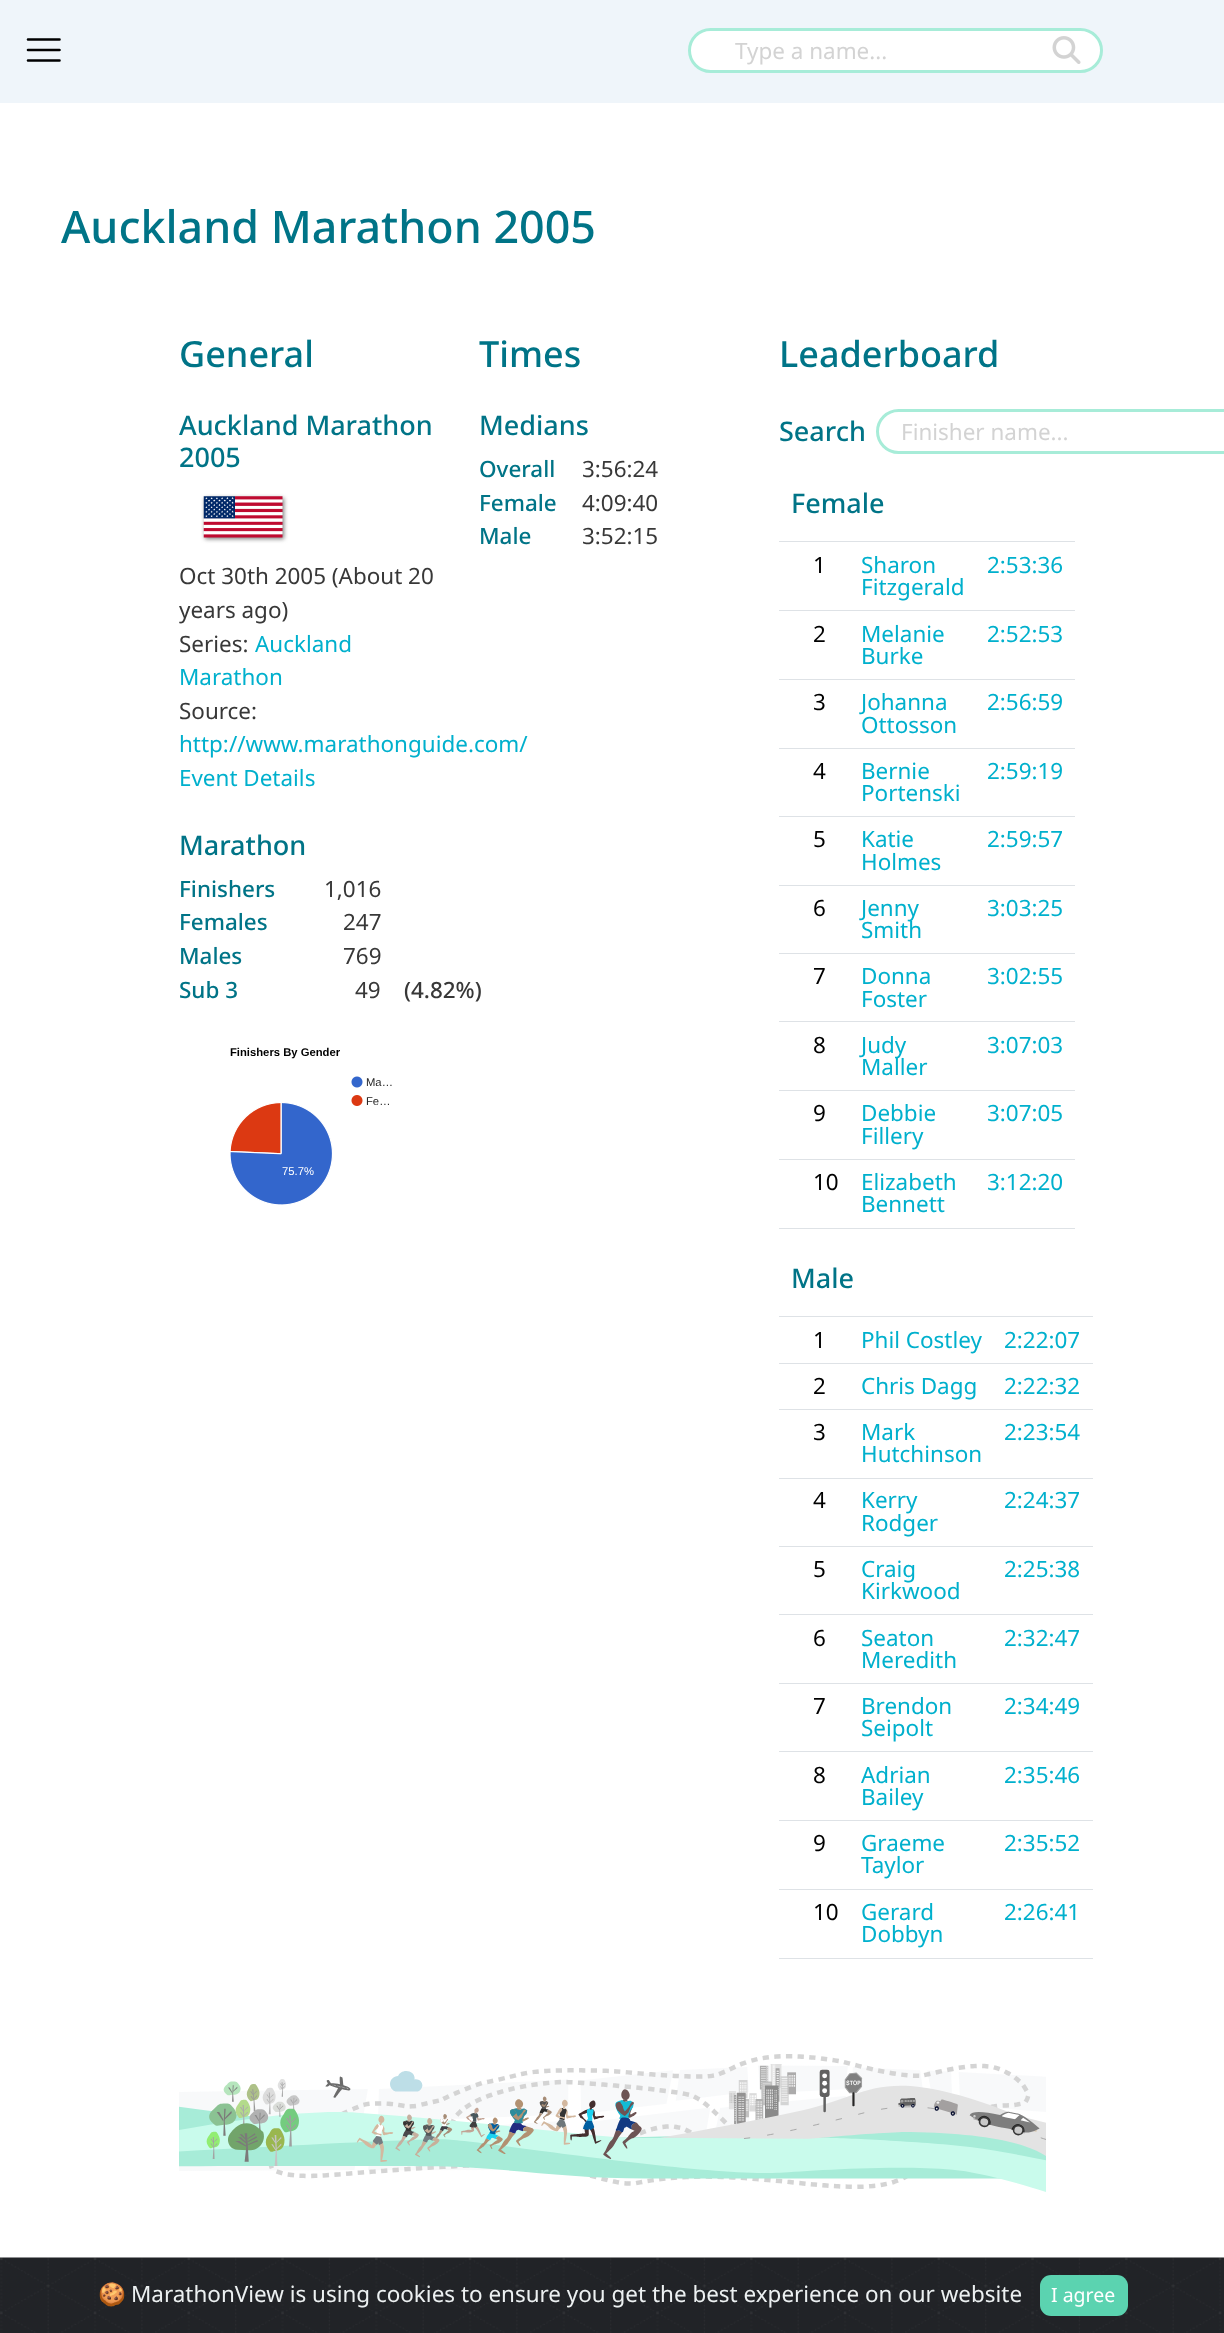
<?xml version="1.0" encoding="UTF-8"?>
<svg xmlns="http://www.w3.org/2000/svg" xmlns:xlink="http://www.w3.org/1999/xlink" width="1224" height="2333">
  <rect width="100%" height="100%" fill="#ffffff" />
  <rect width="1224" height="103" fill="#eff5fa" />
  <path d="M 28 39.5 h 31.5 m -31.5 10.5 h 31.5 m -31.5 10.5 h 31.5" fill="none" stroke="#000000" stroke-width="2.6" stroke-linecap="round" />
  <rect x="689.5" y="29.5" width="412" height="42" rx="21" fill="#ffffff" stroke="#a7ecd8" stroke-width="3" />
  <image x="1052" y="36" width="29" height="28" xlink:href="image1.png" />
  <rect x="205" y="498" width="79" height="41" fill="#808080" filter="blur(2px)" />
  <image x="203" y="496" width="80" height="42" xlink:href="image2.png" />
  <image x="230" y="1076" width="133" height="129" xlink:href="image3.png" />
  <rect x="877.5" y="410.5" width="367" height="42" rx="21" fill="none" stroke="#a7ecd8" stroke-width="3" />
  <rect x="779" y="541" width="296" height="1" fill="#dee2e6" />
  <rect x="779" y="610" width="296" height="1" fill="#dee2e6" />
  <rect x="779" y="679" width="296" height="1" fill="#dee2e6" />
  <rect x="779" y="748" width="296" height="1" fill="#dee2e6" />
  <rect x="779" y="816" width="296" height="1" fill="#dee2e6" />
  <rect x="779" y="885" width="296" height="1" fill="#dee2e6" />
  <rect x="779" y="953" width="296" height="1" fill="#dee2e6" />
  <rect x="779" y="1021" width="296" height="1" fill="#dee2e6" />
  <rect x="779" y="1090" width="296" height="1" fill="#dee2e6" />
  <rect x="779" y="1159" width="296" height="1" fill="#dee2e6" />
  <rect x="779" y="1228" width="296" height="1" fill="#dee2e6" />
  <rect x="779" y="1316" width="314" height="1" fill="#dee2e6" />
  <rect x="779" y="1363" width="314" height="1" fill="#dee2e6" />
  <rect x="779" y="1409" width="314" height="1" fill="#dee2e6" />
  <rect x="779" y="1478" width="314" height="1" fill="#dee2e6" />
  <rect x="779" y="1546" width="314" height="1" fill="#dee2e6" />
  <rect x="779" y="1614" width="314" height="1" fill="#dee2e6" />
  <rect x="779" y="1683" width="314" height="1" fill="#dee2e6" />
  <rect x="779" y="1751" width="314" height="1" fill="#dee2e6" />
  <rect x="779" y="1820" width="314" height="1" fill="#dee2e6" />
  <rect x="779" y="1889" width="314" height="1" fill="#dee2e6" />
  <rect x="779" y="1958" width="314" height="1" fill="#dee2e6" />
  <image x="179" y="2054" width="867" height="138" xlink:href="image4.png" />
  <image x="0" y="2257" width="1224" height="76" xlink:href="image5.png" />
  <rect x="1040" y="2275" width="88" height="41" rx="11" fill="#5bd3b0" />
  <text x="735" y="59" style="font-family: Noto Sans; font-size: 22.45px; fill: #d3d3d3">Type a name...</text>
  <text x="61" y="243" style="font-family: Noto Sans; font-size: 44.8px; font-weight: 500; fill: #007487">Auckland Marathon 2005</text>
  <text x="179" y="367" style="font-family: Noto Sans; font-size: 36px; font-weight: 500; fill: #007487">General</text>
  <text x="179" y="435" style="font-family: Noto Sans; font-size: 27px; font-weight: 500; fill: #007487">Auckland Marathon</text>
  <text x="179" y="467" style="font-family: Noto Sans; font-size: 27px; font-weight: 500; fill: #007487">2005</text>
  <text x="179" y="584" style="font-family: Noto Sans; font-size: 22.45px; fill: #383838">Oct 30th 2005 (About 20</text>
  <text x="179" y="618" style="font-family: Noto Sans; font-size: 22.45px; fill: #383838">years ago)</text>
  <text x="179" y="652" style="font-family: Noto Sans; font-size: 22.45px; fill: #383838">Series:</text>
  <text x="255" y="652" style="font-family: Noto Sans; font-size: 22.45px; fill: #00b0cd">Auckland</text>
  <text x="179" y="685" style="font-family: Noto Sans; font-size: 22.45px; fill: #00b0cd">Marathon</text>
  <text x="179" y="719" style="font-family: Noto Sans; font-size: 22.45px; fill: #383838">Source:</text>
  <text x="179" y="752" style="font-family: Noto Sans; font-size: 22.45px; fill: #00b0cd">http://www.marathonguide.com/</text>
  <text x="179" y="786" style="font-family: Noto Sans; font-size: 22.45px; fill: #00b0cd">Event Details</text>
  <text x="179" y="855" style="font-family: Noto Sans; font-size: 27px; font-weight: 500; fill: #007487">Marathon</text>
  <text x="179" y="897" style="font-family: Noto Sans; font-size: 22.45px; font-weight: 500; fill: #007487">Finishers</text>
  <text x="324" y="897" style="font-family: Noto Sans; font-size: 22.45px; fill: #383838">1,016</text>
  <text x="179" y="930" style="font-family: Noto Sans; font-size: 22.45px; font-weight: 500; fill: #007487">Females</text>
  <text x="343" y="930" style="font-family: Noto Sans; font-size: 22.45px; fill: #383838">247</text>
  <text x="179" y="964" style="font-family: Noto Sans; font-size: 22.45px; font-weight: 500; fill: #007487">Males</text>
  <text x="343" y="964" style="font-family: Noto Sans; font-size: 22.45px; fill: #383838">769</text>
  <text x="179" y="998" style="font-family: Noto Sans; font-size: 22.45px; font-weight: 500; fill: #007487">Sub 3</text>
  <text x="355" y="998" style="font-family: Noto Sans; font-size: 22.45px; fill: #383838">49</text>
  <text x="404" y="998" style="font-family: Noto Sans; font-size: 22.45px; font-weight: 500; fill: #383838">(4.82%)</text>
  <text x="230" y="1056" style="font-family: Liberation Sans; font-size: 11.25px; font-weight: bold; fill: #000000">Finishers By Gender</text>
  <text x="366" y="1086" style="font-family: Liberation Sans; font-size: 11.25px; fill: #222222">Ma…</text>
  <text x="366" y="1105" style="font-family: Liberation Sans; font-size: 11.25px; fill: #222222">Fe…</text>
  <text x="282" y="1175" style="font-family: Liberation Sans; font-size: 11.25px; fill: #ffffff">75.7%</text>
  <text x="479" y="367" style="font-family: Noto Sans; font-size: 36px; font-weight: 500; fill: #007487">Times</text>
  <text x="479" y="435" style="font-family: Noto Sans; font-size: 27px; font-weight: 500; fill: #007487">Medians</text>
  <text x="479" y="477" style="font-family: Noto Sans; font-size: 22.45px; font-weight: 500; fill: #007487">Overall</text>
  <text x="582" y="477" style="font-family: Noto Sans; font-size: 22.45px; fill: #383838">3:56:24</text>
  <text x="479" y="511" style="font-family: Noto Sans; font-size: 22.45px; font-weight: 500; fill: #007487">Female</text>
  <text x="582" y="511" style="font-family: Noto Sans; font-size: 22.45px; fill: #383838">4:09:40</text>
  <text x="479" y="544" style="font-family: Noto Sans; font-size: 22.45px; font-weight: 500; fill: #007487">Male</text>
  <text x="582" y="544" style="font-family: Noto Sans; font-size: 22.45px; fill: #383838">3:52:15</text>
  <text x="779" y="367" style="font-family: Noto Sans; font-size: 36px; font-weight: 500; fill: #007487">Leaderboard</text>
  <text x="779" y="441" style="font-family: Noto Sans; font-size: 27px; font-weight: 500; fill: #007487">Search</text>
  <text x="901" y="440" style="font-family: Noto Sans; font-size: 22.45px; fill: #d3d3d3">Finisher name...</text>
  <text x="791" y="513" style="font-family: Noto Sans; font-size: 27px; font-weight: 500; fill: #007487">Female</text>
  <text x="813" y="573" style="font-family: Noto Sans; font-size: 22.45px; fill: #000000">1</text>
  <text x="861" y="573" style="font-family: Noto Sans; font-size: 22.45px; fill: #00b0cd">Sharon</text>
  <text x="861" y="595" style="font-family: Noto Sans; font-size: 22.45px; fill: #00b0cd">Fitzgerald</text>
  <text x="987" y="573" style="font-family: Noto Sans; font-size: 22.45px; fill: #00b0cd">2:53:36</text>
  <text x="813" y="642" style="font-family: Noto Sans; font-size: 22.45px; fill: #000000">2</text>
  <text x="861" y="642" style="font-family: Noto Sans; font-size: 22.45px; fill: #00b0cd">Melanie</text>
  <text x="861" y="664" style="font-family: Noto Sans; font-size: 22.45px; fill: #00b0cd">Burke</text>
  <text x="987" y="642" style="font-family: Noto Sans; font-size: 22.45px; fill: #00b0cd">2:52:53</text>
  <text x="813" y="710" style="font-family: Noto Sans; font-size: 22.45px; fill: #000000">3</text>
  <text x="861" y="710" style="font-family: Noto Sans; font-size: 22.45px; fill: #00b0cd">Johanna</text>
  <text x="861" y="733" style="font-family: Noto Sans; font-size: 22.45px; fill: #00b0cd">Ottosson</text>
  <text x="987" y="710" style="font-family: Noto Sans; font-size: 22.45px; fill: #00b0cd">2:56:59</text>
  <text x="813" y="779" style="font-family: Noto Sans; font-size: 22.45px; fill: #000000">4</text>
  <text x="861" y="779" style="font-family: Noto Sans; font-size: 22.45px; fill: #00b0cd">Bernie</text>
  <text x="861" y="801" style="font-family: Noto Sans; font-size: 22.45px; fill: #00b0cd">Portenski</text>
  <text x="987" y="779" style="font-family: Noto Sans; font-size: 22.45px; fill: #00b0cd">2:59:19</text>
  <text x="813" y="847" style="font-family: Noto Sans; font-size: 22.45px; fill: #000000">5</text>
  <text x="861" y="847" style="font-family: Noto Sans; font-size: 22.45px; fill: #00b0cd">Katie</text>
  <text x="861" y="870" style="font-family: Noto Sans; font-size: 22.45px; fill: #00b0cd">Holmes</text>
  <text x="987" y="847" style="font-family: Noto Sans; font-size: 22.45px; fill: #00b0cd">2:59:57</text>
  <text x="813" y="916" style="font-family: Noto Sans; font-size: 22.45px; fill: #000000">6</text>
  <text x="861" y="916" style="font-family: Noto Sans; font-size: 22.45px; fill: #00b0cd">Jenny</text>
  <text x="861" y="938" style="font-family: Noto Sans; font-size: 22.45px; fill: #00b0cd">Smith</text>
  <text x="987" y="916" style="font-family: Noto Sans; font-size: 22.45px; fill: #00b0cd">3:03:25</text>
  <text x="813" y="984" style="font-family: Noto Sans; font-size: 22.45px; fill: #000000">7</text>
  <text x="861" y="984" style="font-family: Noto Sans; font-size: 22.45px; fill: #00b0cd">Donna</text>
  <text x="861" y="1007" style="font-family: Noto Sans; font-size: 22.45px; fill: #00b0cd">Foster</text>
  <text x="987" y="984" style="font-family: Noto Sans; font-size: 22.45px; fill: #00b0cd">3:02:55</text>
  <text x="813" y="1053" style="font-family: Noto Sans; font-size: 22.45px; fill: #000000">8</text>
  <text x="861" y="1053" style="font-family: Noto Sans; font-size: 22.45px; fill: #00b0cd">Judy</text>
  <text x="861" y="1075" style="font-family: Noto Sans; font-size: 22.45px; fill: #00b0cd">Maller</text>
  <text x="987" y="1053" style="font-family: Noto Sans; font-size: 22.45px; fill: #00b0cd">3:07:03</text>
  <text x="813" y="1121" style="font-family: Noto Sans; font-size: 22.45px; fill: #000000">9</text>
  <text x="861" y="1121" style="font-family: Noto Sans; font-size: 22.45px; fill: #00b0cd">Debbie</text>
  <text x="861" y="1144" style="font-family: Noto Sans; font-size: 22.45px; fill: #00b0cd">Fillery</text>
  <text x="987" y="1121" style="font-family: Noto Sans; font-size: 22.45px; fill: #00b0cd">3:07:05</text>
  <text x="813" y="1190" style="font-family: Noto Sans; font-size: 22.45px; fill: #000000">10</text>
  <text x="861" y="1190" style="font-family: Noto Sans; font-size: 22.45px; fill: #00b0cd">Elizabeth</text>
  <text x="861" y="1212" style="font-family: Noto Sans; font-size: 22.45px; fill: #00b0cd">Bennett</text>
  <text x="987" y="1190" style="font-family: Noto Sans; font-size: 22.45px; fill: #00b0cd">3:12:20</text>
  <text x="791" y="1288" style="font-family: Noto Sans; font-size: 27px; font-weight: 500; fill: #007487">Male</text>
  <text x="813" y="1348" style="font-family: Noto Sans; font-size: 22.45px; fill: #000000">1</text>
  <text x="861" y="1348" style="font-family: Noto Sans; font-size: 22.45px; fill: #00b0cd">Phil Costley</text>
  <text x="1004" y="1348" style="font-family: Noto Sans; font-size: 22.45px; fill: #00b0cd">2:22:07</text>
  <text x="813" y="1394" style="font-family: Noto Sans; font-size: 22.45px; fill: #000000">2</text>
  <text x="861" y="1394" style="font-family: Noto Sans; font-size: 22.45px; fill: #00b0cd">Chris Dagg</text>
  <text x="1004" y="1394" style="font-family: Noto Sans; font-size: 22.45px; fill: #00b0cd">2:22:32</text>
  <text x="813" y="1440" style="font-family: Noto Sans; font-size: 22.45px; fill: #000000">3</text>
  <text x="861" y="1440" style="font-family: Noto Sans; font-size: 22.45px; fill: #00b0cd">Mark</text>
  <text x="861" y="1462" style="font-family: Noto Sans; font-size: 22.45px; fill: #00b0cd">Hutchinson</text>
  <text x="1004" y="1440" style="font-family: Noto Sans; font-size: 22.45px; fill: #00b0cd">2:23:54</text>
  <text x="813" y="1508" style="font-family: Noto Sans; font-size: 22.45px; fill: #000000">4</text>
  <text x="861" y="1508" style="font-family: Noto Sans; font-size: 22.45px; fill: #00b0cd">Kerry</text>
  <text x="861" y="1531" style="font-family: Noto Sans; font-size: 22.45px; fill: #00b0cd">Rodger</text>
  <text x="1004" y="1508" style="font-family: Noto Sans; font-size: 22.45px; fill: #00b0cd">2:24:37</text>
  <text x="813" y="1577" style="font-family: Noto Sans; font-size: 22.45px; fill: #000000">5</text>
  <text x="861" y="1577" style="font-family: Noto Sans; font-size: 22.45px; fill: #00b0cd">Craig</text>
  <text x="861" y="1599" style="font-family: Noto Sans; font-size: 22.45px; fill: #00b0cd">Kirkwood</text>
  <text x="1004" y="1577" style="font-family: Noto Sans; font-size: 22.45px; fill: #00b0cd">2:25:38</text>
  <text x="813" y="1646" style="font-family: Noto Sans; font-size: 22.45px; fill: #000000">6</text>
  <text x="861" y="1646" style="font-family: Noto Sans; font-size: 22.45px; fill: #00b0cd">Seaton</text>
  <text x="861" y="1668" style="font-family: Noto Sans; font-size: 22.45px; fill: #00b0cd">Meredith</text>
  <text x="1004" y="1646" style="font-family: Noto Sans; font-size: 22.45px; fill: #00b0cd">2:32:47</text>
  <text x="813" y="1714" style="font-family: Noto Sans; font-size: 22.45px; fill: #000000">7</text>
  <text x="861" y="1714" style="font-family: Noto Sans; font-size: 22.45px; fill: #00b0cd">Brendon</text>
  <text x="861" y="1736" style="font-family: Noto Sans; font-size: 22.45px; fill: #00b0cd">Seipolt</text>
  <text x="1004" y="1714" style="font-family: Noto Sans; font-size: 22.45px; fill: #00b0cd">2:34:49</text>
  <text x="813" y="1783" style="font-family: Noto Sans; font-size: 22.45px; fill: #000000">8</text>
  <text x="861" y="1783" style="font-family: Noto Sans; font-size: 22.45px; fill: #00b0cd">Adrian</text>
  <text x="861" y="1805" style="font-family: Noto Sans; font-size: 22.45px; fill: #00b0cd">Bailey</text>
  <text x="1004" y="1783" style="font-family: Noto Sans; font-size: 22.45px; fill: #00b0cd">2:35:46</text>
  <text x="813" y="1851" style="font-family: Noto Sans; font-size: 22.45px; fill: #000000">9</text>
  <text x="861" y="1851" style="font-family: Noto Sans; font-size: 22.45px; fill: #00b0cd">Graeme</text>
  <text x="861" y="1873" style="font-family: Noto Sans; font-size: 22.45px; fill: #00b0cd">Taylor</text>
  <text x="1004" y="1851" style="font-family: Noto Sans; font-size: 22.45px; fill: #00b0cd">2:35:52</text>
  <text x="813" y="1920" style="font-family: Noto Sans; font-size: 22.45px; fill: #000000">10</text>
  <text x="861" y="1920" style="font-family: Noto Sans; font-size: 22.45px; fill: #00b0cd">Gerard</text>
  <text x="861" y="1942" style="font-family: Noto Sans; font-size: 22.45px; fill: #00b0cd">Dobbyn</text>
  <text x="1004" y="1920" style="font-family: Noto Sans; font-size: 22.45px; fill: #00b0cd">2:26:41</text>
  <text x="98" y="2302" style="font-family: Noto Color Emoji; font-size: 22.45px; fill: #ecf0f1">🍪</text>
  <text x="131" y="2302" style="font-family: Noto Sans; font-size: 22.45px; fill: #ecf0f1">MarathonView is using cookies to ensure you get the best experience on our website</text>
  <text x="1051" y="2302" style="font-family: Noto Sans; font-size: 19.5px; fill: #ffffff">I agree</text>
</svg>
